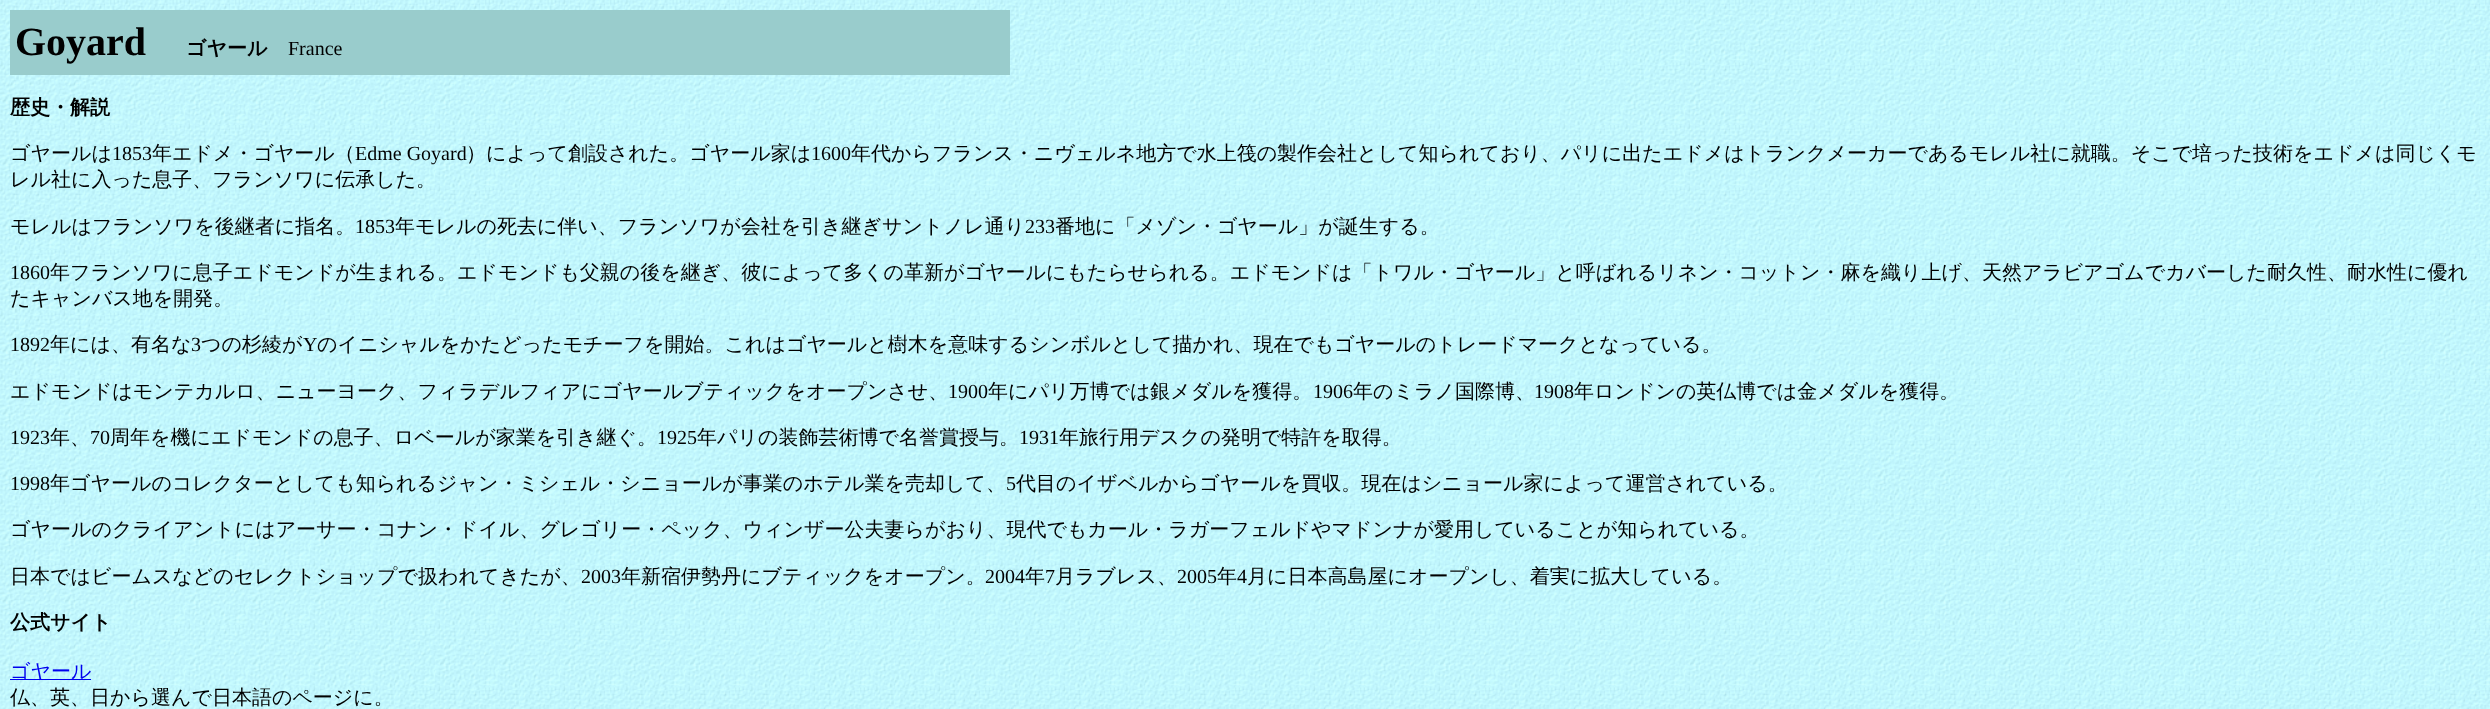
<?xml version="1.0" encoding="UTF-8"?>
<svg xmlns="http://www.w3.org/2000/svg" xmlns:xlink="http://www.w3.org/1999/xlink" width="2490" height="709">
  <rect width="100%" height="100%" fill="#ffffff" />
  <image x="0" y="0" width="2490" height="709" xlink:href="image1.png" />
  <rect x="10" y="10" width="1000" height="65" fill="#99cccc" />
  <rect x="10" y="679" width="81" height="1" fill="#0000ee" />
  <text x="15" y="55" style="font-family: Liberation Serif; font-size: 40px; font-weight: bold; fill: #000000">Goyard</text>
  <text x="186" y="55" style="font-family: WenQuanYi Zen Hei; font-size: 20px; font-weight: bold; fill: #000000">ゴヤール</text>
  <text x="288" y="55" style="font-family: Liberation Serif; font-size: 20px; fill: #000000">France</text>
  <text x="10" y="114" style="font-family: WenQuanYi Zen Hei; font-size: 20px; font-weight: bold; fill: #000000">歴史・解説</text>
  <text x="10" y="160" style="font-family: WenQuanYi Zen Hei; font-size: 20px; font-weight: 500; fill: #000000">ゴヤールは</text>
  <text x="112" y="160" style="font-family: Liberation Serif; font-size: 20px; fill: #000000">1853</text>
  <text x="152" y="160" style="font-family: WenQuanYi Zen Hei; font-size: 20px; font-weight: 500; fill: #000000">年エドメ・ゴヤール（</text>
  <text x="355" y="160" style="font-family: Liberation Serif; font-size: 20px; fill: #000000">Edme Goyard</text>
  <text x="466" y="160" style="font-family: WenQuanYi Zen Hei; font-size: 20px; font-weight: 500; fill: #000000">）によって創設された。ゴヤール家は</text>
  <text x="811" y="160" style="font-family: Liberation Serif; font-size: 20px; fill: #000000">1600</text>
  <text x="851" y="160" style="font-family: WenQuanYi Zen Hei; font-size: 20px; font-weight: 500; fill: #000000">年代からフランス・ニヴェルネ地方で水上筏の製作会社として知られており、パリに出たエドメはトランクメーカーであるモレル社に就職。そこで培った技術をエドメは同じくモ</text>
  <text x="10" y="186" style="font-family: WenQuanYi Zen Hei; font-size: 20px; font-weight: 500; fill: #000000">レル社に入った息子、フランソワに伝承した。</text>
  <text x="10" y="233" style="font-family: WenQuanYi Zen Hei; font-size: 20px; font-weight: 500; fill: #000000">モレルはフランソワを後継者に指名。</text>
  <text x="355" y="233" style="font-family: Liberation Serif; font-size: 20px; fill: #000000">1853</text>
  <text x="395" y="233" style="font-family: WenQuanYi Zen Hei; font-size: 20px; font-weight: 500; fill: #000000">年モレルの死去に伴い、フランソワが会社を引き継ぎサントノレ通り</text>
  <text x="1025" y="233" style="font-family: Liberation Serif; font-size: 20px; fill: #000000">233</text>
  <text x="1055" y="233" style="font-family: WenQuanYi Zen Hei; font-size: 20px; font-weight: 500; fill: #000000">番地に「メゾン・ゴヤール」が誕生する。</text>
  <text x="10" y="279" style="font-family: Liberation Serif; font-size: 20px; fill: #000000">1860</text>
  <text x="50" y="279" style="font-family: WenQuanYi Zen Hei; font-size: 20px; font-weight: 500; fill: #000000">年フランソワに息子エドモンドが生まれる。エドモンドも父親の後を継ぎ、彼によって多くの革新がゴヤールにもたらせられる。エドモンドは「トワル・ゴヤール」と呼ばれるリネン・コットン・麻を織り上げ、天然アラビアゴムでカバーした耐久性、耐水性に優れ</text>
  <text x="10" y="305" style="font-family: WenQuanYi Zen Hei; font-size: 20px; font-weight: 500; fill: #000000">たキャンバス地を開発。</text>
  <text x="10" y="351" style="font-family: Liberation Serif; font-size: 20px; fill: #000000">1892</text>
  <text x="50" y="351" style="font-family: WenQuanYi Zen Hei; font-size: 20px; font-weight: 500; fill: #000000">年には、有名な</text>
  <text x="191" y="351" style="font-family: Liberation Serif; font-size: 20px; fill: #000000">3</text>
  <text x="201" y="351" style="font-family: WenQuanYi Zen Hei; font-size: 20px; font-weight: 500; fill: #000000">つの杉綾が</text>
  <text x="303" y="351" style="font-family: Liberation Serif; font-size: 20px; fill: #000000">Y</text>
  <text x="317" y="351" style="font-family: WenQuanYi Zen Hei; font-size: 20px; font-weight: 500; fill: #000000">のイニシャルをかたどったモチーフを開始。これはゴヤールと樹木を意味するシンボルとして描かれ、現在でもゴヤールのトレードマークとなっている。</text>
  <text x="10" y="398" style="font-family: WenQuanYi Zen Hei; font-size: 20px; font-weight: 500; fill: #000000">エドモンドはモンテカルロ、ニューヨーク、フィラデルフィアにゴヤールブティックをオープンさせ、</text>
  <text x="948" y="398" style="font-family: Liberation Serif; font-size: 20px; fill: #000000">1900</text>
  <text x="988" y="398" style="font-family: WenQuanYi Zen Hei; font-size: 20px; font-weight: 500; fill: #000000">年にパリ万博では銀メダルを獲得。</text>
  <text x="1313" y="398" style="font-family: Liberation Serif; font-size: 20px; fill: #000000">1906</text>
  <text x="1353" y="398" style="font-family: WenQuanYi Zen Hei; font-size: 20px; font-weight: 500; fill: #000000">年のミラノ国際博、</text>
  <text x="1534" y="398" style="font-family: Liberation Serif; font-size: 20px; fill: #000000">1908</text>
  <text x="1574" y="398" style="font-family: WenQuanYi Zen Hei; font-size: 20px; font-weight: 500; fill: #000000">年ロンドンの英仏博では金メダルを獲得。</text>
  <text x="10" y="444" style="font-family: Liberation Serif; font-size: 20px; fill: #000000">1923</text>
  <text x="50" y="444" style="font-family: WenQuanYi Zen Hei; font-size: 20px; font-weight: 500; fill: #000000">年、</text>
  <text x="90" y="444" style="font-family: Liberation Serif; font-size: 20px; fill: #000000">70</text>
  <text x="110" y="444" style="font-family: WenQuanYi Zen Hei; font-size: 20px; font-weight: 500; fill: #000000">周年を機にエドモンドの息子、ロベールが家業を引き継ぐ。</text>
  <text x="657" y="444" style="font-family: Liberation Serif; font-size: 20px; fill: #000000">1925</text>
  <text x="697" y="444" style="font-family: WenQuanYi Zen Hei; font-size: 20px; font-weight: 500; fill: #000000">年パリの装飾芸術博で名誉賞授与。</text>
  <text x="1019" y="444" style="font-family: Liberation Serif; font-size: 20px; fill: #000000">1931</text>
  <text x="1059" y="444" style="font-family: WenQuanYi Zen Hei; font-size: 20px; font-weight: 500; fill: #000000">年旅行用デスクの発明で特許を取得。</text>
  <text x="10" y="490" style="font-family: Liberation Serif; font-size: 20px; fill: #000000">1998</text>
  <text x="50" y="490" style="font-family: WenQuanYi Zen Hei; font-size: 20px; font-weight: 500; fill: #000000">年ゴヤールのコレクターとしても知られるジャン・ミシェル・シニョールが事業のホテル業を売却して、</text>
  <text x="1006" y="490" style="font-family: Liberation Serif; font-size: 20px; fill: #000000">5</text>
  <text x="1016" y="490" style="font-family: WenQuanYi Zen Hei; font-size: 20px; font-weight: 500; fill: #000000">代目のイザベルからゴヤールを買収。現在はシニョール家によって運営されている。</text>
  <text x="10" y="536" style="font-family: WenQuanYi Zen Hei; font-size: 20px; font-weight: 500; fill: #000000">ゴヤールのクライアントにはアーサー・コナン・ドイル、グレゴリー・ペック、ウィンザー公夫妻らがおり、現代でもカール・ラガーフェルドやマドンナが愛用していることが知られている。</text>
  <text x="10" y="583" style="font-family: WenQuanYi Zen Hei; font-size: 20px; font-weight: 500; fill: #000000">日本ではビームスなどのセレクトショップで扱われてきたが、</text>
  <text x="581" y="583" style="font-family: Liberation Serif; font-size: 20px; fill: #000000">2003</text>
  <text x="621" y="583" style="font-family: WenQuanYi Zen Hei; font-size: 20px; font-weight: 500; fill: #000000">年新宿伊勢丹にブティックをオープン。</text>
  <text x="985" y="583" style="font-family: Liberation Serif; font-size: 20px; fill: #000000">2004</text>
  <text x="1025" y="583" style="font-family: WenQuanYi Zen Hei; font-size: 20px; font-weight: 500; fill: #000000">年</text>
  <text x="1045" y="583" style="font-family: Liberation Serif; font-size: 20px; fill: #000000">7</text>
  <text x="1055" y="583" style="font-family: WenQuanYi Zen Hei; font-size: 20px; font-weight: 500; fill: #000000">月ラブレス、</text>
  <text x="1177" y="583" style="font-family: Liberation Serif; font-size: 20px; fill: #000000">2005</text>
  <text x="1217" y="583" style="font-family: WenQuanYi Zen Hei; font-size: 20px; font-weight: 500; fill: #000000">年</text>
  <text x="1237" y="583" style="font-family: Liberation Serif; font-size: 20px; fill: #000000">4</text>
  <text x="1247" y="583" style="font-family: WenQuanYi Zen Hei; font-size: 20px; font-weight: 500; fill: #000000">月に日本高島屋にオープンし、着実に拡大している。</text>
  <text x="10" y="629" style="font-family: WenQuanYi Zen Hei; font-size: 20px; font-weight: bold; fill: #000000">公式サイト</text>
  <text x="10" y="678" style="font-family: WenQuanYi Zen Hei; font-size: 20px; font-weight: 500; fill: #0000ee">ゴヤール</text>
  <text x="10" y="704" style="font-family: WenQuanYi Zen Hei; font-size: 20px; font-weight: 500; fill: #000000">仏、英、日から選んで日本語のページに。</text>
</svg>
